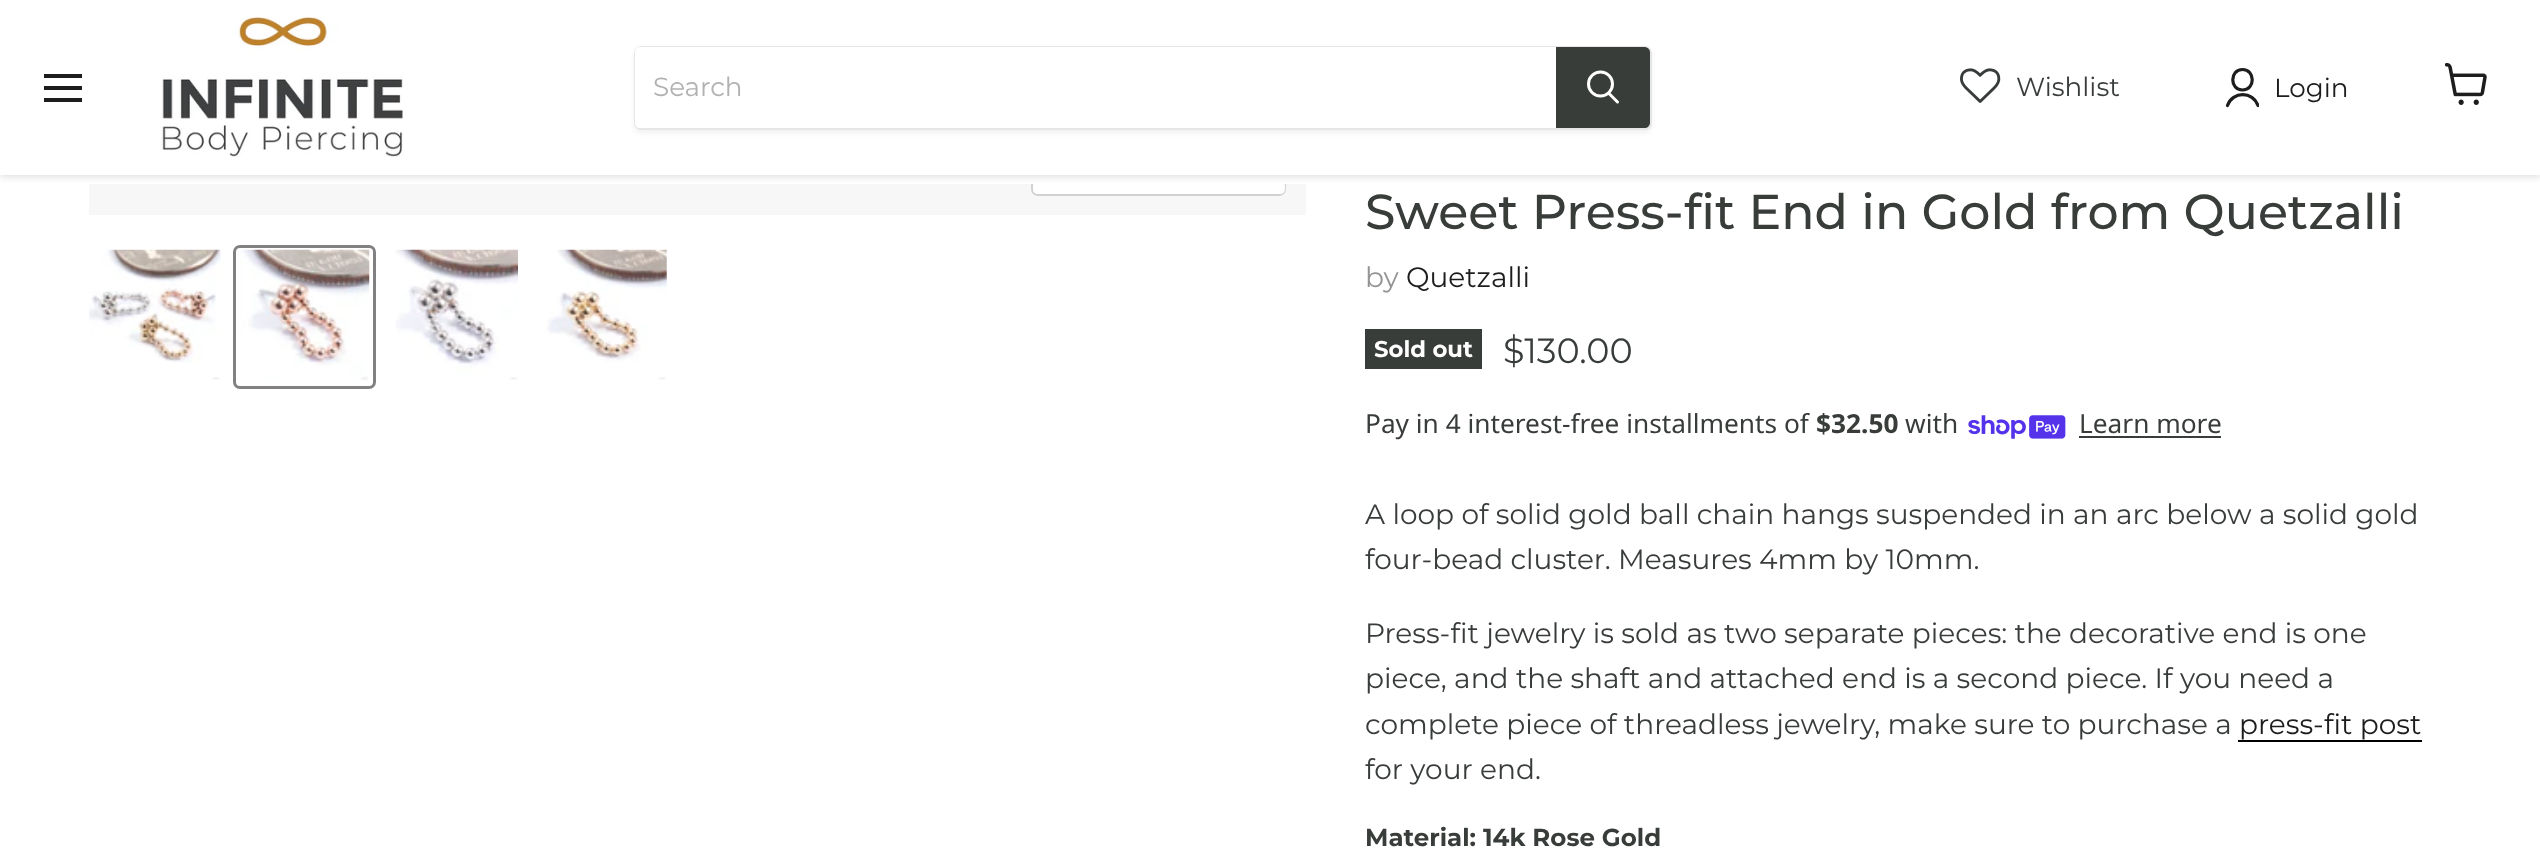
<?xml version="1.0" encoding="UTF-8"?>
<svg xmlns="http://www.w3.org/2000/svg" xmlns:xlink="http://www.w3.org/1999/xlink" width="2540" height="858">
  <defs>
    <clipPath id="clip1"><rect x="89" y="184" width="1217" height="31" /></clipPath>
    <clipPath id="clip2"><path d="M 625 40 h 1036 v 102 h -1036 z m 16 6 h 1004 c 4 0 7 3 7 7 v 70 c 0 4 -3 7 -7 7 h -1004 c -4 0 -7 -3 -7 -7 v -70 c 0 -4 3 -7 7 -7 z" clip-rule="evenodd" /></clipPath>
    <clipPath id="clip3"><rect x="2224" y="67" width="35" height="42" /></clipPath>
  </defs>
  <rect width="100%" height="100%" fill="#ffffff" />
  <rect x="89" y="184" width="1217" height="31" fill="#f7f7f7" />
  <g clip-path="url(#clip1)">
    <rect x="1032" y="145" width="253" height="50" rx="6" fill="none" stroke="#d2d2d2" stroke-width="2" />
  </g>
  <path d="M 1033 184 h 252 v 5 c 0 3 -2 5 -5 5 h -242 c -3 0 -5 -2 -5 -5 z" fill="#ffffff" fill-opacity="0.9" />
  <rect y="2" width="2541" height="175" fill="#808080" fill-opacity="0.25" filter="blur(3.5px)" />
  <rect width="2540" height="175" fill="#ffffff" />
  <rect x="44" y="74" width="38" height="4" fill="#1d1d1d" />
  <rect x="44" y="86" width="38" height="4" fill="#1d1d1d" />
  <rect x="44" y="98" width="38" height="4" fill="#1d1d1d" />
  <image x="161" y="17" width="242" height="140" xlink:href="image1.png" />
  <g clip-path="url(#clip2)">
    <rect x="634" y="49" width="1018" height="84" rx="7" fill="#808080" fill-opacity="0.11" filter="blur(2.5px)" />
  </g>
  <rect x="635" y="47" width="1016" height="82" rx="6" fill="none" stroke="#808080" stroke-opacity="0.2" stroke-width="2" />
  <path d="M 640 47 h 916 v 81 h -916 c -3 0 -5 -2 -5 -5 v -71 c 0 -3 2 -5 5 -5 z" fill="#ffffff" />
  <path d="M 1557 48 h 88 c 2 0 4 2 4 4 v 71 c 0 2 -2 4 -4 4 h -88 z" fill="#393d3a" stroke="#393d3a" stroke-width="2" />
  <path d="M 1617.5 102 l -8.5 -8.5" fill="none" stroke="#ffffff" stroke-width="3" stroke-linecap="round" />
  <circle cx="1600.5" cy="84" r="12" fill="none" stroke="#ffffff" stroke-width="3" />
  <image x="1960" y="68" width="41" height="35" xlink:href="image2.png" />
  <path d="M 2242.5 90 c 13 0 13 -20.5 0 -20.5 c -13 0 -13 20.5 0 20.5 z" fill="none" stroke="#1d1d1d" stroke-width="3.2" stroke-linecap="round" stroke-linejoin="round" />
  <g clip-path="url(#clip3)">
    <path d="M 2258 105.5 c -5 -14.5 -25.5 -14.5 -30.5 0" fill="none" stroke="#1d1d1d" stroke-width="3.2" stroke-linecap="round" stroke-linejoin="round" />
  </g>
  <image x="2445" y="63" width="42" height="42" xlink:href="image3.png" />
  <image x="89" y="249" width="132" height="131" xlink:href="image4.png" />
  <rect x="234.5" y="246.5" width="140" height="141" rx="5.5" fill="none" stroke="#818181" stroke-width="3" />
  <image x="238" y="249" width="132" height="132" xlink:href="image5.png" />
  <image x="395" y="249" width="123" height="131" xlink:href="image6.png" />
  <image x="546" y="249" width="121" height="131" xlink:href="image7.png" />
  <rect x="1365" y="329" width="117" height="40" fill="#393d3a" />
  <image x="1968" y="415" width="98" height="24" xlink:href="image8.png" />
  <rect x="2079" y="436" width="142" height="2" fill="#393d3a" />
  <rect x="2238" y="740" width="184" height="2" fill="#000000" />
  <text x="653" y="96" style="font-family: Montserrat; font-size: 26.25px; fill: #b0b1b0">Search</text>
  <text x="2016" y="96" style="font-family: Montserrat; font-size: 26.25px; fill: #393d3a">Wishlist</text>
  <text x="2274" y="97" style="font-family: Montserrat; font-size: 26.25px; fill: #1d1d1d">Login</text>
  <text x="1365" y="229" style="font-family: Montserrat; font-size: 49px; font-weight: 500; fill: #393d3a">Sweet Press-fit End in Gold from Quetzalli</text>
  <text x="1365" y="287" style="font-family: Montserrat; font-size: 28px; fill: #949494">by</text>
  <text x="1406" y="287" style="font-family: Montserrat; font-size: 28px; fill: #1d1d1d">Quetzalli</text>
  <text x="1374" y="357" style="font-family: Montserrat; font-size: 22.75px; font-weight: bold; fill: #ffffff">Sold out</text>
  <text x="1503" y="363" style="font-family: Montserrat; font-size: 35px; fill: #393d3a">$130.00</text>
  <text x="1365" y="433" style="font-family: Noto Sans; font-size: 26.25px; fill: #393d3a">Pay in 4 interest-free installments of</text>
  <text x="1816" y="433" style="font-family: Noto Sans; font-size: 26.25px; font-weight: bold; fill: #393d3a">$32.50</text>
  <text x="1905" y="433" style="font-family: Noto Sans; font-size: 26.25px; fill: #393d3a">with</text>
  <text x="2079" y="433" style="font-family: Noto Sans; font-size: 26.25px; fill: #393d3a">Learn more</text>
  <text x="1365" y="524" style="font-family: Montserrat; font-size: 28px; fill: #393d3a">A loop of solid gold ball chain hangs suspended in an arc below a solid gold</text>
  <text x="1365" y="569" style="font-family: Montserrat; font-size: 28px; fill: #393d3a">four-bead cluster. Measures 4mm by 10mm.</text>
  <text x="1365" y="643" style="font-family: Montserrat; font-size: 28px; fill: #393d3a">Press-fit jewelry is sold as two separate pieces: the decorative end is one</text>
  <text x="1365" y="688" style="font-family: Montserrat; font-size: 28px; fill: #393d3a">piece, and the shaft and attached end is a second piece. If you need a</text>
  <text x="1365" y="734" style="font-family: Montserrat; font-size: 28px; fill: #393d3a">complete piece of threadless jewelry, make sure to purchase a</text>
  <text x="2239" y="734" style="font-family: Montserrat; font-size: 28px; fill: #1d1d1d">press-fit post</text>
  <text x="1365" y="779" style="font-family: Montserrat; font-size: 28px; fill: #393d3a">for your end.</text>
  <text x="1365" y="846" style="font-family: Montserrat; font-size: 24.5px; font-weight: bold; fill: #393d3a">Material: 14k Rose Gold</text>
</svg>
